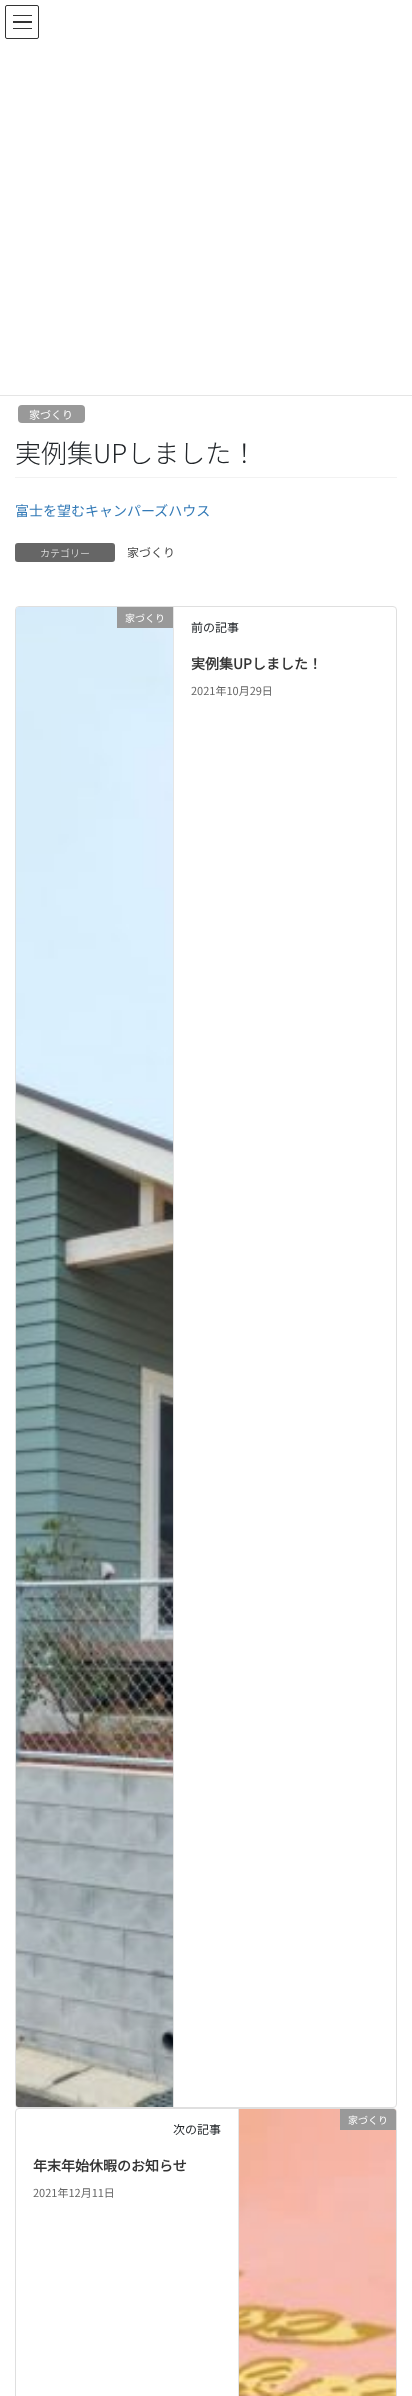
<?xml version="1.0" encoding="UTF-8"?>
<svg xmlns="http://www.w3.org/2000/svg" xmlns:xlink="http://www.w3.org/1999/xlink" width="412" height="2396">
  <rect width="100%" height="100%" fill="#ffffff" />
  <rect x="13" y="15" width="19" height="1" fill="#333333" />
  <rect x="13" y="21" width="19" height="2" fill="#333333" />
  <rect x="13" y="28" width="19" height="1" fill="#333333" />
  <rect x="5.5" y="5.5" width="33" height="33" rx="1.5" fill="none" stroke="#333333" />
  <rect y="395" width="412" height="1" fill="#e5e5e5" />
  <rect x="15" y="477" width="382" height="1" fill="#f2f2f2" />
  <rect x="18" y="405" width="67" height="18" rx="4" fill="#999999" />
  <rect x="15" y="543" width="100" height="19" rx="3" fill="#666666" />
  <rect x="15.5" y="606.5" width="381" height="1501" rx="3.5" fill="none" stroke="#dfdfdf" />
  <image x="16" y="607" width="157" height="1500" xlink:href="image1.png" />
  <rect x="173" y="607" width="1" height="1500" fill="#e5e5e5" />
  <rect x="117" y="607" width="56" height="21" fill="#999999" />
  <rect x="15.5" y="2108.5" width="381" height="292" rx="3.5" fill="none" stroke="#dfdfdf" />
  <image x="239" y="2109" width="157" height="287" xlink:href="image2.png" />
  <rect x="238" y="2109" width="1" height="287" fill="#e5e5e5" />
  <path d="M 340 2109 h 53.5 c 1.5 0 2.5 1 2.5 2.5 v 18.5 h -56 z" fill="#999999" />
  <text x="29" y="419" style="font-family: Noto Sans JP; font-size: 11px; fill: #ffffff">家づくり</text>
  <text x="15" y="463" style="font-family: Noto Sans JP; font-size: 26px; font-weight: 300; fill: #212529">実例集UPしました！</text>
  <text x="15" y="516" style="font-family: Noto Sans JP; font-size: 14px; fill: #337ab7">富士を望むキャンパーズハウス</text>
  <text x="40" y="557" style="font-family: Noto Sans JP; font-size: 10px; font-weight: 300; fill: #ffffff">カテゴリー</text>
  <text x="127" y="557" style="font-family: Noto Sans JP; font-size: 12px; fill: #464646">家づくり</text>
  <text x="125" y="622" style="font-family: Noto Sans JP; font-size: 10px; fill: #ffffff">家づくり</text>
  <text x="191" y="632" style="font-family: Noto Sans JP; font-size: 12px; fill: #212529">前の記事</text>
  <text x="191" y="669" style="font-family: Noto Sans JP; font-size: 14px; font-weight: bold; fill: #333333">実例集UPしました！</text>
  <text x="191" y="695" style="font-family: Noto Sans JP; font-size: 11px; fill: #666666">2021年10月29日</text>
  <text x="348" y="2124" style="font-family: Noto Sans JP; font-size: 10px; fill: #ffffff">家づくり</text>
  <text x="173" y="2134" style="font-family: Noto Sans JP; font-size: 12px; fill: #212529">次の記事</text>
  <text x="33" y="2171" style="font-family: Noto Sans JP; font-size: 14px; font-weight: bold; fill: #333333">年末年始休暇のお知らせ</text>
  <text x="33" y="2197" style="font-family: Noto Sans JP; font-size: 11px; fill: #666666">2021年12月11日</text>
</svg>
